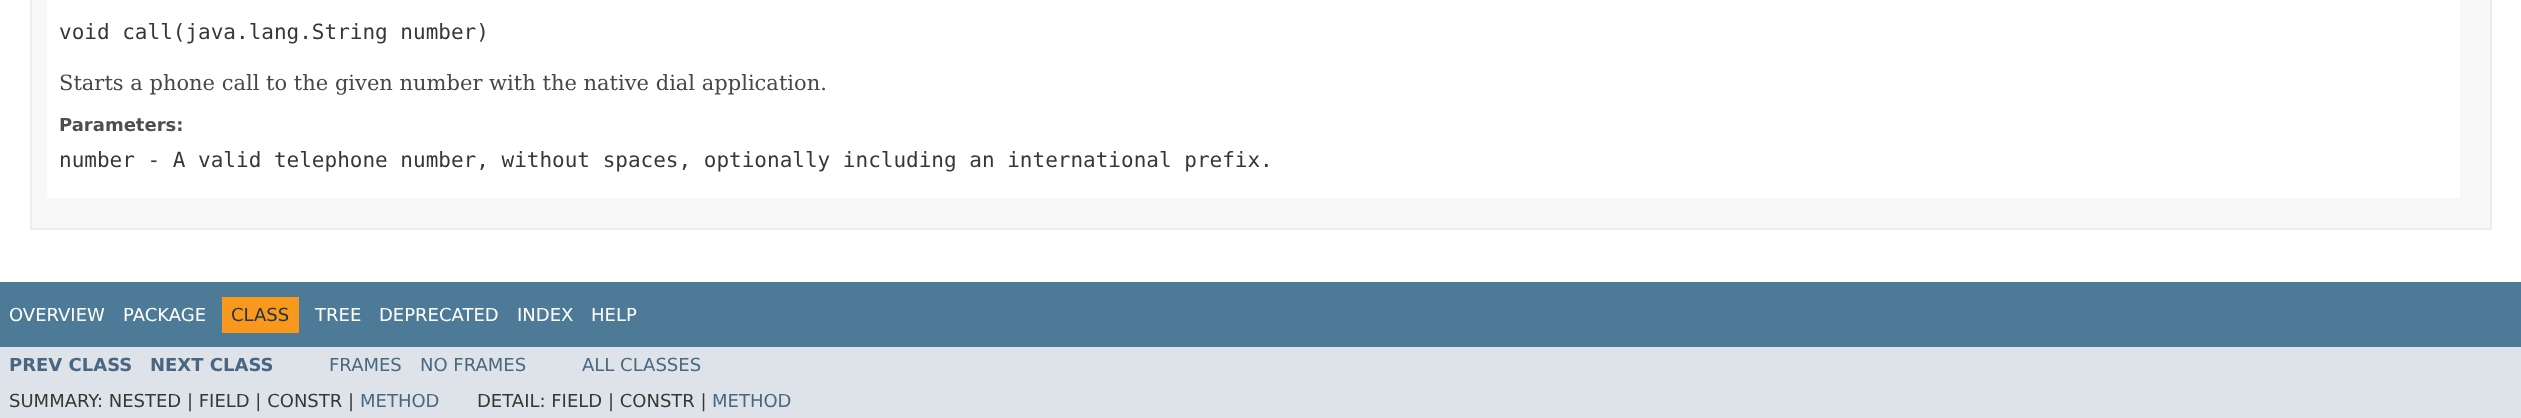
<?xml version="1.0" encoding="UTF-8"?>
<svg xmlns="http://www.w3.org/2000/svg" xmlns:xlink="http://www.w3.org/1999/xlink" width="2521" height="418">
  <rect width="100%" height="100%" fill="#ffffff" />
  <rect x="31" y="-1" width="2460" height="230" fill="#f8f8f8" stroke="#ededed" stroke-width="2" />
  <rect x="47" width="2413" height="198" fill="#ffffff" />
  <rect y="282" width="2521" height="65" fill="#4d7a97" />
  <rect x="222" y="297" width="77" height="36" fill="#f8981d" />
  <rect y="347" width="2521" height="71" fill="#dee3e9" />
  <text x="59" y="39" style="font-family: DejaVu Sans Mono; font-size: 21px; fill: #353833">void call(java.lang.String number)</text>
  <text x="59" y="90" style="font-family: DejaVu Serif; font-size: 21px; fill: #474747">Starts a phone call to the given number with the native dial application.</text>
  <text x="59" y="131" style="font-family: DejaVu Sans; font-size: 18px; font-weight: bold; fill: #4e4e4e">Parameters:</text>
  <text x="59" y="167" style="font-family: DejaVu Sans Mono; font-size: 21px; fill: #353833">number - A valid telephone number, without spaces, optionally including an international prefix.</text>
  <text x="9" y="321" style="font-family: DejaVu Sans; font-size: 18px; fill: #ffffff">OVERVIEW</text>
  <text x="123" y="321" style="font-family: DejaVu Sans; font-size: 18px; fill: #ffffff">PACKAGE</text>
  <text x="231" y="321" style="font-family: DejaVu Sans; font-size: 18px; fill: #253441">CLASS</text>
  <text x="315" y="321" style="font-family: DejaVu Sans; font-size: 18px; fill: #ffffff">TREE</text>
  <text x="379" y="321" style="font-family: DejaVu Sans; font-size: 18px; fill: #ffffff">DEPRECATED</text>
  <text x="517" y="321" style="font-family: DejaVu Sans; font-size: 18px; fill: #ffffff">INDEX</text>
  <text x="591" y="321" style="font-family: DejaVu Sans; font-size: 18px; fill: #ffffff">HELP</text>
  <text x="9" y="371" style="font-family: DejaVu Sans; font-size: 18px; font-weight: bold; fill: #4a6782">PREV CLASS</text>
  <text x="150" y="371" style="font-family: DejaVu Sans; font-size: 18px; font-weight: bold; fill: #4a6782">NEXT CLASS</text>
  <text x="329" y="371" style="font-family: DejaVu Sans; font-size: 18px; fill: #4a6782">FRAMES</text>
  <text x="420" y="371" style="font-family: DejaVu Sans; font-size: 18px; fill: #4a6782">NO FRAMES</text>
  <text x="582" y="371" style="font-family: DejaVu Sans; font-size: 18px; fill: #4a6782">ALL CLASSES</text>
  <text x="9" y="407" style="font-family: DejaVu Sans; font-size: 18px; fill: #353833">SUMMARY: NESTED | FIELD | CONSTR |</text>
  <text x="360" y="407" style="font-family: DejaVu Sans; font-size: 18px; fill: #4a6782">METHOD</text>
  <text x="477" y="407" style="font-family: DejaVu Sans; font-size: 18px; fill: #353833">DETAIL: FIELD | CONSTR |</text>
  <text x="712" y="407" style="font-family: DejaVu Sans; font-size: 18px; fill: #4a6782">METHOD</text>
</svg>
